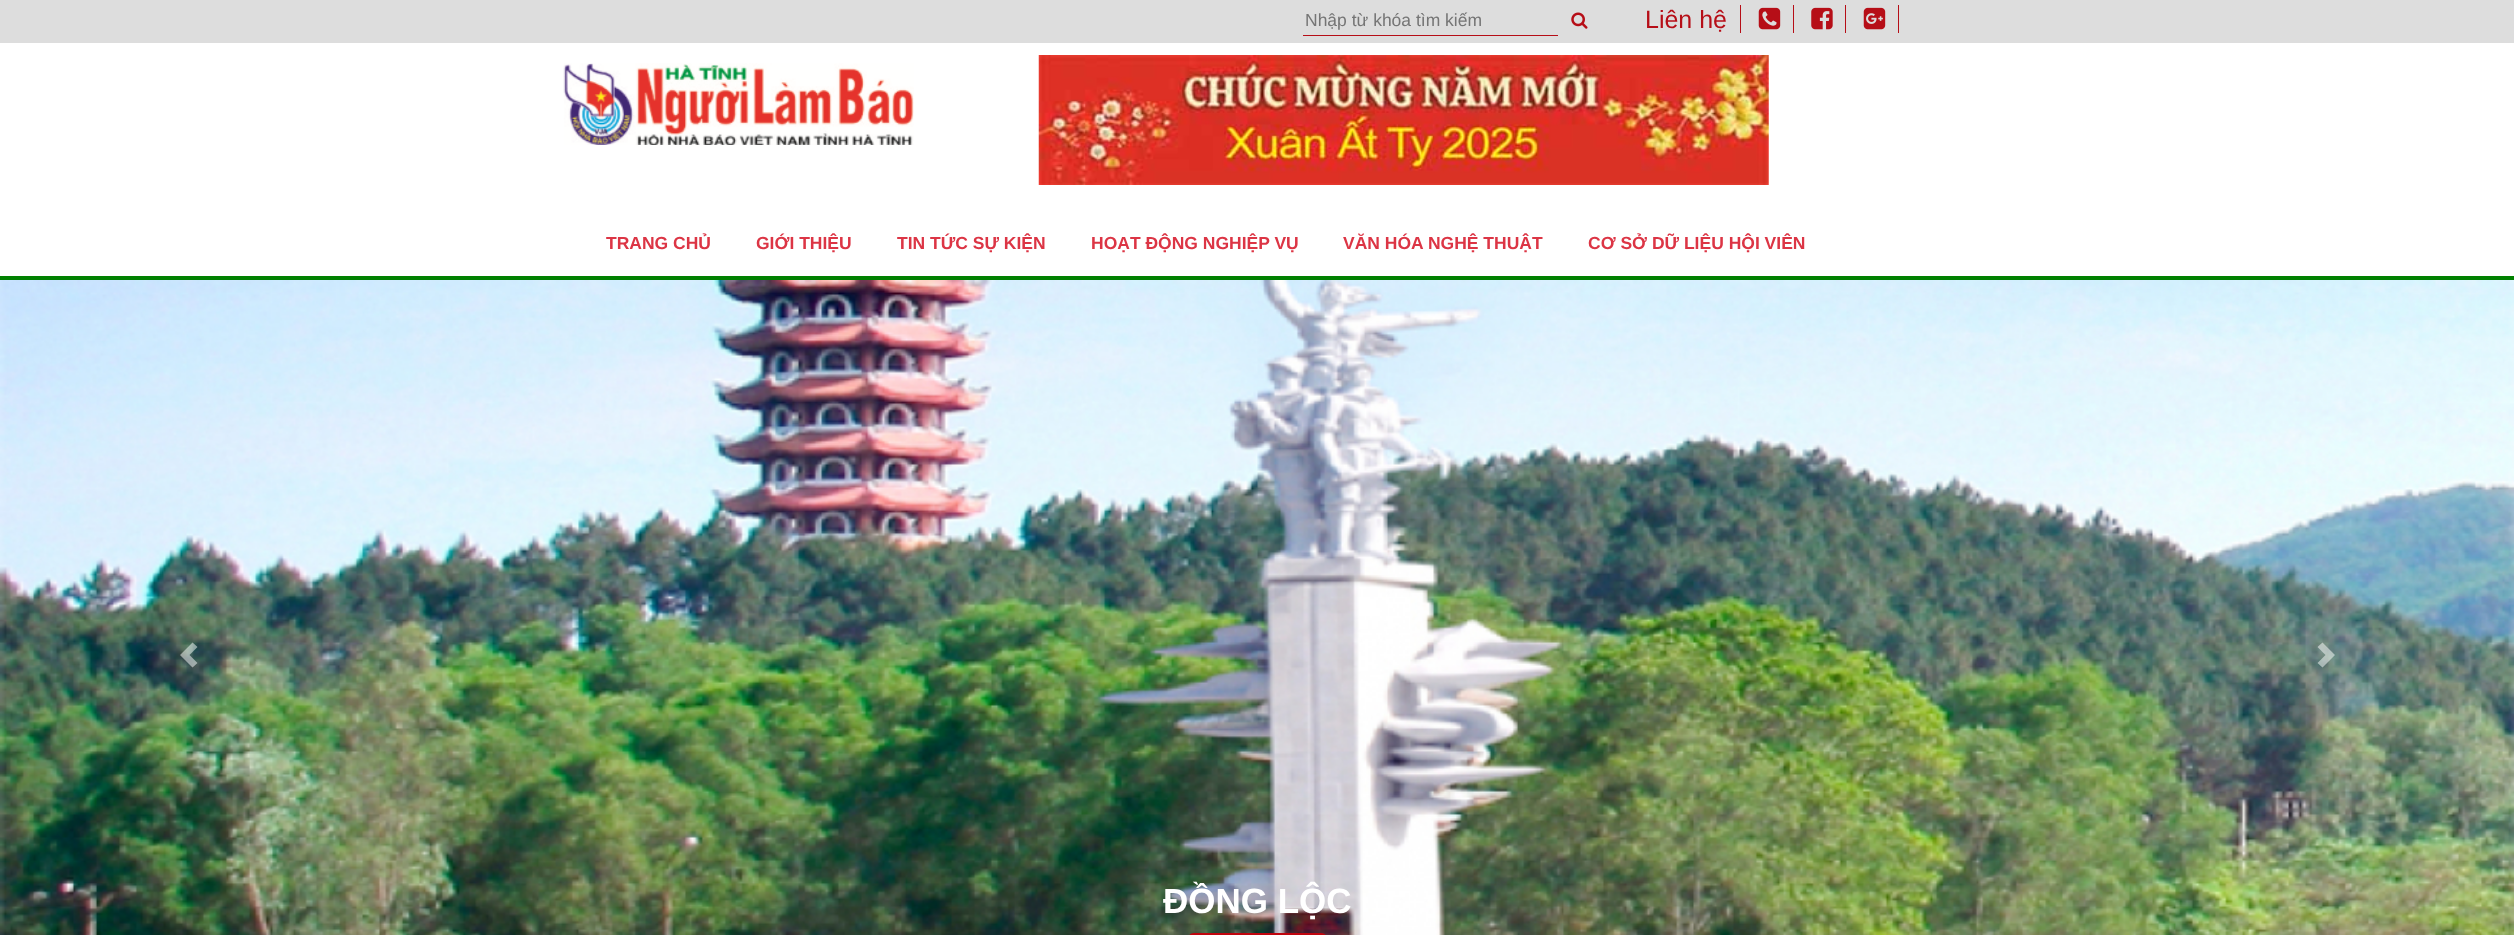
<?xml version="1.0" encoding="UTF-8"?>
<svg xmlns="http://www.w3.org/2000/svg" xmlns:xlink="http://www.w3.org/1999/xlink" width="2514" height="935">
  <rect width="100%" height="100%" fill="#ffffff" />
  <rect width="2514" height="43" fill="#dddddd" />
  <rect x="1303" y="35" width="255" height="1" fill="#b60e17" />
  <image x="1571" y="12" width="17" height="17" xlink:href="image1.png" />
  <rect x="1740" y="5" width="1" height="28" fill="#b60e17" />
  <rect x="1793" y="5" width="1" height="28" fill="#b60e17" />
  <image x="1758" y="7" width="23" height="23" xlink:href="image2.png" />
  <rect x="1845" y="5" width="1" height="28" fill="#b60e17" />
  <image x="1811" y="7" width="22" height="23" xlink:href="image3.png" />
  <rect x="1898" y="5" width="1" height="28" fill="#b60e17" />
  <image x="1863" y="7" width="23" height="23" xlink:href="image4.png" />
  <image x="563" y="63" width="351" height="82" xlink:href="image5.png" />
  <image x="1038" y="55" width="731" height="130" xlink:href="image6.png" />
  <rect y="276" width="2514" height="4" fill="#008000" />
  <image x="0" y="280" width="2514" height="655" xlink:href="image7.png" />
  <path d="M 192.5 642.5 l -12.5 12.5 l 12.5 12.5 l 5 -4.5 l -8 -8 l 8 -8 z" fill="#ffffff" fill-opacity="0.5" />
  <path d="M 2322.5 642.5 l -5 4.5 l 8 8 l -8 8 l 5 4.5 l 12.5 -12.5 z" fill="#ffffff" fill-opacity="0.5" />
  <rect x="1189" y="933" width="137" height="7" rx="5" fill="#c0050e" />
  <text x="1305" y="26" style="font-family: Liberation Sans; font-size: 17.5px; fill: #757575">Nhập từ khóa tìm kiếm</text>
  <text x="1645" y="28" style="font-family: Liberation Sans; font-size: 25px; fill: #b60e17">Liên hệ</text>
  <text x="606" y="249" style="font-family: Liberation Sans; font-size: 17.5px; font-weight: bold; fill: #dc3545">TRANG CHỦ</text>
  <text x="756" y="249" style="font-family: Liberation Sans; font-size: 17.5px; font-weight: bold; fill: #dc3545">GIỚI THIỆU</text>
  <text x="897" y="249" style="font-family: Liberation Sans; font-size: 17.5px; font-weight: bold; fill: #dc3545">TIN TỨC SỰ KIỆN</text>
  <text x="1091" y="249" style="font-family: Liberation Sans; font-size: 17.5px; font-weight: bold; fill: #dc3545">HOẠT ĐỘNG NGHIỆP VỤ</text>
  <text x="1343" y="249" style="font-family: Liberation Sans; font-size: 17.5px; font-weight: bold; fill: #dc3545">VĂN HÓA NGHỆ THUẬT</text>
  <text x="1588" y="249" style="font-family: Liberation Sans; font-size: 17.5px; font-weight: bold; fill: #dc3545">CƠ SỞ DỮ LIỆU HỘI VIÊN</text>
  <text x="1163" y="913" style="font-family: Liberation Sans; font-size: 35px; font-weight: bold; fill: #ffffff">ĐỒNG LỘC</text>
</svg>
